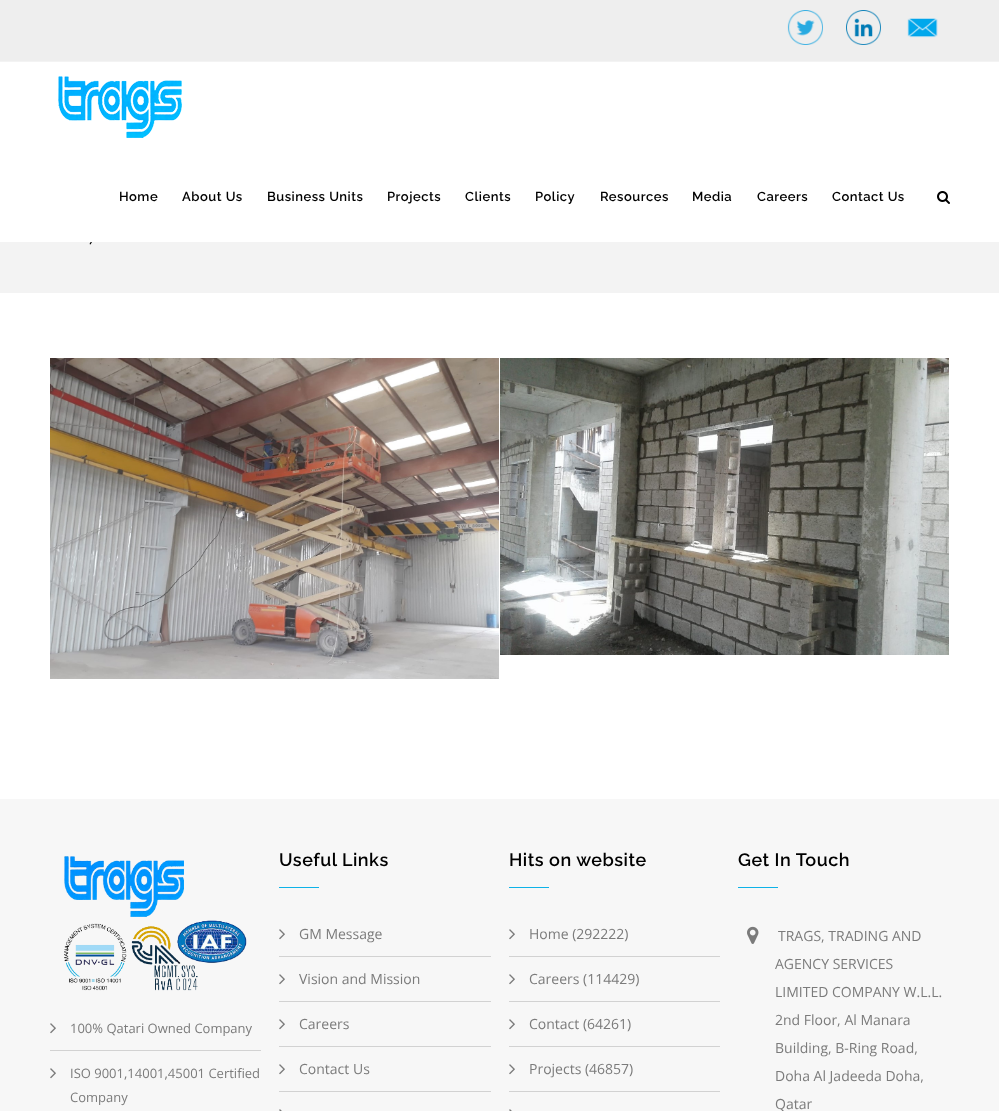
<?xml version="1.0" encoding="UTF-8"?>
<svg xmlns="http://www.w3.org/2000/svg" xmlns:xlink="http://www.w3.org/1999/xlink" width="999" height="1111">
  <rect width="100%" height="100%" fill="#ffffff" />
  <rect y="61" width="999" height="232" fill="#f3f3f3" />
  <path d="M 96.5 232 l 1 0.5 l -7 12 l -1 -0.5 z" fill="#000000" />
  <image x="50" y="358" width="449" height="321" xlink:href="image1.png" />
  <image x="500" y="358" width="449" height="297" xlink:href="image2.png" />
  <rect width="999" height="61" fill="#eeeeee" />
  <image x="787" y="10" width="36" height="35" xlink:href="image3.png" />
  <image x="846" y="10" width="35" height="35" xlink:href="image4.png" />
  <image x="907" y="18" width="31" height="20" xlink:href="image5.png" />
  <rect y="62" width="999" height="180" fill="#ffffff" />
  <image x="58" y="76" width="124" height="62" xlink:href="image6.png" />
  <image x="937" y="191" width="13" height="13" xlink:href="image7.png" />
  <rect y="799" width="999" height="312" fill="#f7f7f7" />
  <image x="64" y="856" width="183" height="135" xlink:href="image8.png" />
  <rect x="50" y="1050" width="211" height="1" fill="#d2d2d2" />
  <image x="50" y="1023" width="6" height="11" xlink:href="image9.png" />
  <image x="50" y="1068" width="6" height="11" xlink:href="image9.png" />
  <rect x="279" y="887" width="40" height="1" fill="#0eb2e7" />
  <rect x="279" y="956" width="212" height="1" fill="#d2d2d2" />
  <image x="279" y="929" width="6" height="11" xlink:href="image9.png" />
  <rect x="279" y="1001" width="212" height="1" fill="#d2d2d2" />
  <image x="279" y="974" width="6" height="11" xlink:href="image9.png" />
  <rect x="279" y="1046" width="212" height="1" fill="#d2d2d2" />
  <image x="279" y="1019" width="6" height="11" xlink:href="image9.png" />
  <rect x="279" y="1091" width="212" height="1" fill="#d2d2d2" />
  <image x="279" y="1064" width="6" height="11" xlink:href="image9.png" />
  <image x="279" y="1109" width="3" height="2" xlink:href="image10.png" />
  <rect x="509" y="887" width="40" height="1" fill="#0eb2e7" />
  <rect x="509" y="956" width="211" height="1" fill="#d2d2d2" />
  <image x="509" y="929" width="6" height="11" xlink:href="image9.png" />
  <rect x="509" y="1001" width="211" height="1" fill="#d2d2d2" />
  <image x="509" y="974" width="6" height="11" xlink:href="image9.png" />
  <rect x="509" y="1046" width="211" height="1" fill="#d2d2d2" />
  <image x="509" y="1019" width="6" height="11" xlink:href="image9.png" />
  <rect x="509" y="1091" width="211" height="1" fill="#d2d2d2" />
  <image x="509" y="1064" width="6" height="11" xlink:href="image9.png" />
  <image x="509" y="1109" width="3" height="2" xlink:href="image10.png" />
  <rect x="738" y="887" width="40" height="1" fill="#0eb2e7" />
  <image x="747" y="926" width="12" height="18" xlink:href="image11.png" />
  <text x="119" y="201" style="font-family: Raleway; font-size: 13px; font-weight: 600; letter-spacing: 0.5px; fill: #000000">Home</text>
  <text x="182" y="201" style="font-family: Raleway; font-size: 13px; font-weight: 600; letter-spacing: 0.5px; fill: #000000">About Us</text>
  <text x="267" y="201" style="font-family: Raleway; font-size: 13px; font-weight: 600; letter-spacing: 0.5px; fill: #000000">Business Units</text>
  <text x="387" y="201" style="font-family: Raleway; font-size: 13px; font-weight: 600; letter-spacing: 0.5px; fill: #000000">Projects</text>
  <text x="465" y="201" style="font-family: Raleway; font-size: 13px; font-weight: 600; letter-spacing: 0.5px; fill: #000000">Clients</text>
  <text x="535" y="201" style="font-family: Raleway; font-size: 13px; font-weight: 600; letter-spacing: 0.5px; fill: #000000">Policy</text>
  <text x="600" y="201" style="font-family: Raleway; font-size: 13px; font-weight: 600; letter-spacing: 0.5px; fill: #000000">Resources</text>
  <text x="692" y="201" style="font-family: Raleway; font-size: 13px; font-weight: 600; letter-spacing: 0.5px; fill: #000000">Media</text>
  <text x="757" y="201" style="font-family: Raleway; font-size: 13px; font-weight: 600; letter-spacing: 0.5px; fill: #000000">Careers</text>
  <text x="832" y="201" style="font-family: Raleway; font-size: 13px; font-weight: 600; letter-spacing: 0.5px; fill: #000000">Contact Us</text>
  <text x="70" y="1033" style="font-family: Open Sans; font-size: 13px; fill: #7b7b7b">100% Qatari Owned Company</text>
  <text x="70" y="1078" style="font-family: Open Sans; font-size: 13px; fill: #7b7b7b">ISO 9001,14001,45001 Certified</text>
  <text x="70" y="1102" style="font-family: Open Sans; font-size: 13px; fill: #7b7b7b">Company</text>
  <text x="279" y="866" style="font-family: Raleway; font-size: 18px; font-weight: 600; letter-spacing: 0.5px; fill: #000000">Useful Links</text>
  <text x="299" y="939" style="font-family: Open Sans; font-size: 14px; fill: #7b7b7b">GM Message</text>
  <text x="299" y="984" style="font-family: Open Sans; font-size: 14px; fill: #7b7b7b">Vision and Mission</text>
  <text x="299" y="1029" style="font-family: Open Sans; font-size: 14px; fill: #7b7b7b">Careers</text>
  <text x="299" y="1074" style="font-family: Open Sans; font-size: 14px; fill: #7b7b7b">Contact Us</text>
  <text x="509" y="866" style="font-family: Raleway; font-size: 18px; font-weight: 600; letter-spacing: 0.5px; fill: #000000">Hits on website</text>
  <text x="529" y="939" style="font-family: Open Sans; font-size: 14px; fill: #7b7b7b">Home (292222)</text>
  <text x="529" y="984" style="font-family: Open Sans; font-size: 14px; fill: #7b7b7b">Careers (114429)</text>
  <text x="529" y="1029" style="font-family: Open Sans; font-size: 14px; fill: #7b7b7b">Contact (64261)</text>
  <text x="529" y="1074" style="font-family: Open Sans; font-size: 14px; fill: #7b7b7b">Projects (46857)</text>
  <text x="738" y="866" style="font-family: Raleway; font-size: 18px; font-weight: 600; letter-spacing: 0.5px; fill: #000000">Get In Touch</text>
  <text x="778" y="941" style="font-family: Open Sans; font-size: 14px; fill: #7b7b7b">TRAGS, TRADING AND</text>
  <text x="775" y="969" style="font-family: Open Sans; font-size: 14px; fill: #7b7b7b">AGENCY SERVICES</text>
  <text x="775" y="997" style="font-family: Open Sans; font-size: 14px; fill: #7b7b7b">LIMITED COMPANY W.L.L.</text>
  <text x="775" y="1025" style="font-family: Open Sans; font-size: 14px; fill: #7b7b7b">2nd Floor, Al Manara</text>
  <text x="775" y="1053" style="font-family: Open Sans; font-size: 14px; fill: #7b7b7b">Building, B-Ring Road,</text>
  <text x="775" y="1081" style="font-family: Open Sans; font-size: 14px; fill: #7b7b7b">Doha Al Jadeeda Doha,</text>
  <text x="775" y="1109" style="font-family: Open Sans; font-size: 14px; fill: #7b7b7b">Qatar</text>
</svg>
